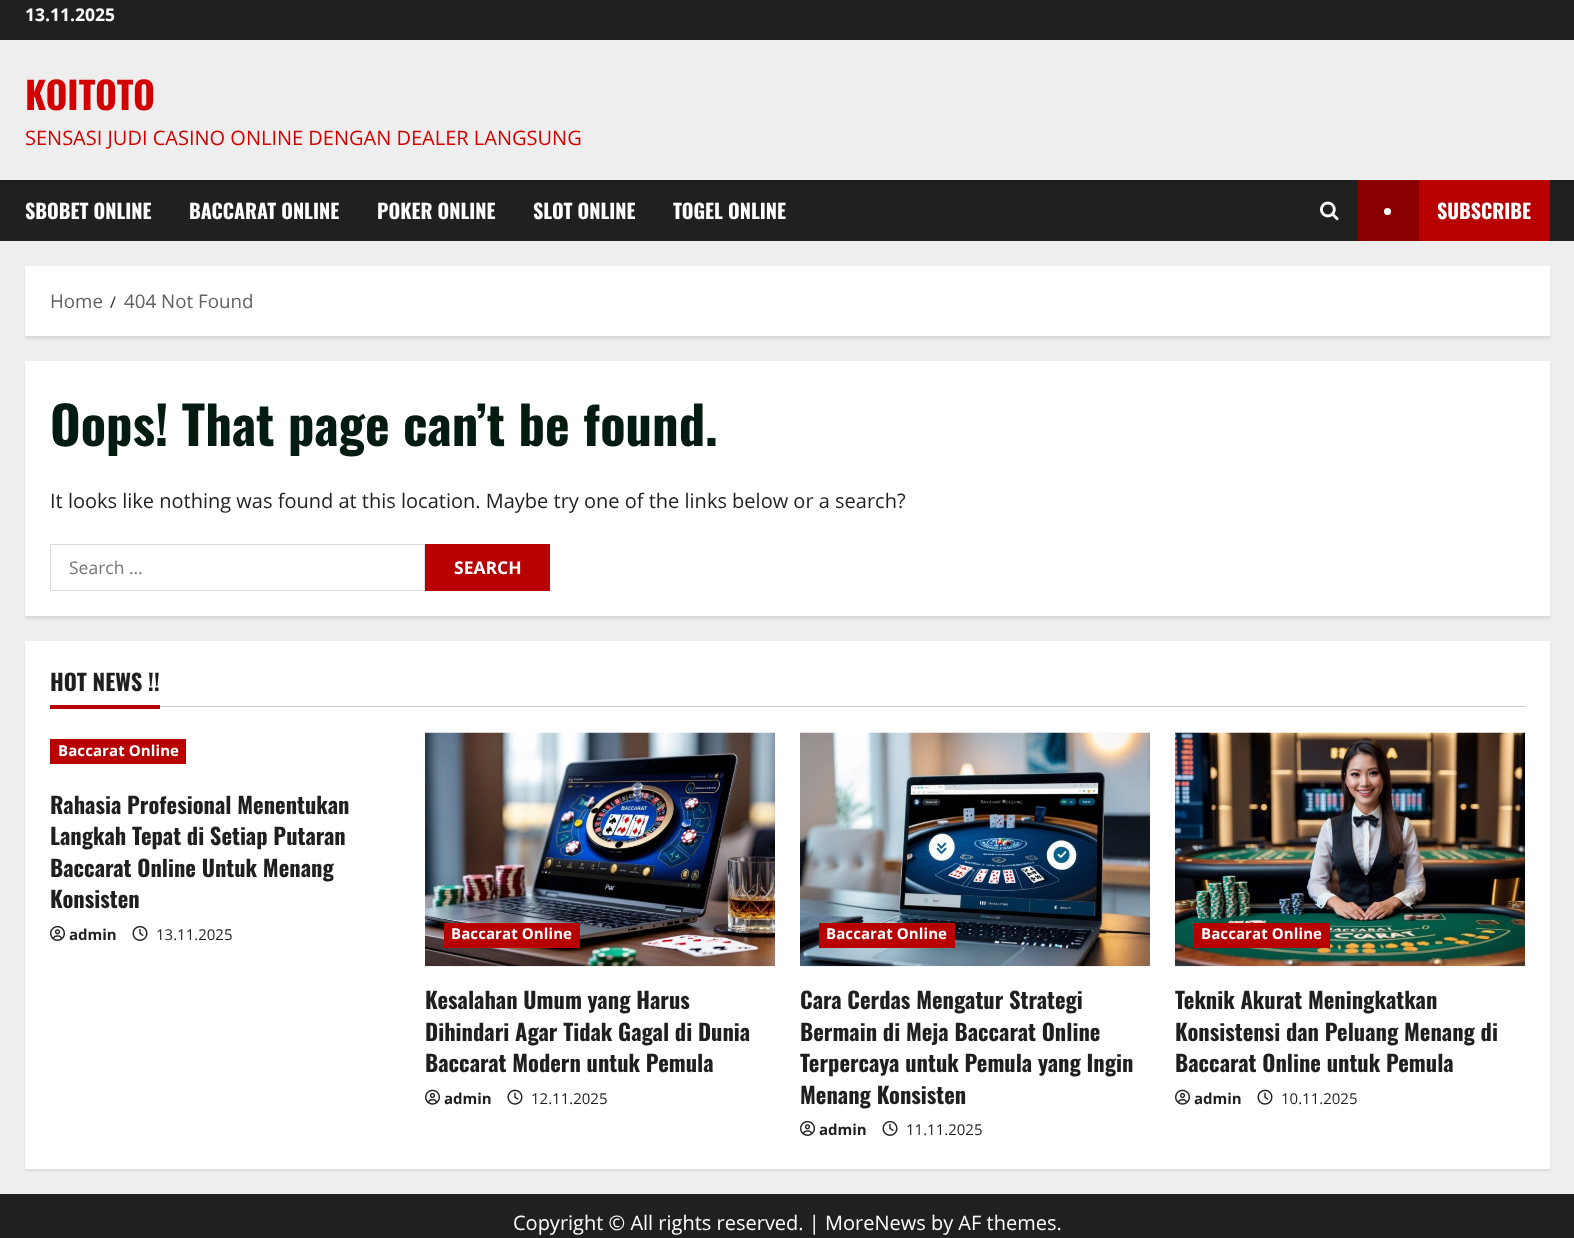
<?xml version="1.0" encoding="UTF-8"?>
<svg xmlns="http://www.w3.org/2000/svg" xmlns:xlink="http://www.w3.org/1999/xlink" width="1574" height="1238">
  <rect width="100%" height="100%" fill="#eeeeee" />
  <rect width="1574" height="40" fill="#202020" />
  <rect y="180" width="1574" height="61" fill="#202020" />
  <image x="1320" y="201" width="19" height="20" xlink:href="image1.png" />
  <rect x="1419" y="180" width="131" height="61" fill="#b80000" />
  <rect x="1358" y="180" width="61" height="61" fill="#8a0000" />
  <circle cx="1387.5" cy="211.5" r="3.5" fill="#ffffff" />
  <rect x="25" y="269" width="1525" height="70" fill="#000000" fill-opacity="0.08" filter="blur(1px)" />
  <rect x="25" y="266" width="1525" height="70" fill="#ffffff" />
  <rect x="25" y="364" width="1525" height="255" fill="#000000" fill-opacity="0.08" filter="blur(1px)" />
  <rect x="25" y="361" width="1525" height="255" fill="#ffffff" />
  <rect x="50.5" y="544.5" width="374" height="46" fill="none" stroke="#dcdcdc" />
  <rect x="425" y="544" width="125" height="47" fill="#b80000" />
  <rect x="25" y="644" width="1525" height="527" fill="#000000" fill-opacity="0.08" filter="blur(1px)" />
  <rect x="25" y="641" width="1525" height="528" fill="#ffffff" />
  <rect x="160" y="706" width="1365" height="1" fill="#cccccc" />
  <rect x="50" y="705" width="110" height="4" fill="#b80000" />
  <rect x="50" y="739" width="136" height="25" fill="#b80000" />
  <image x="50" y="925" width="15" height="16" xlink:href="image2.png" />
  <image x="132" y="926" width="16" height="15" xlink:href="image3.png" />
  <image x="425" y="732" width="350" height="235" xlink:href="image4.png" />
  <rect x="444" y="923" width="136" height="25" fill="#b80000" />
  <image x="425" y="1089" width="15" height="16" xlink:href="image5.png" />
  <image x="507" y="1089" width="16" height="16" xlink:href="image6.png" />
  <image x="800" y="732" width="350" height="235" xlink:href="image7.png" />
  <rect x="819" y="923" width="136" height="25" fill="#b80000" />
  <image x="800" y="1120" width="15" height="16" xlink:href="image2.png" />
  <image x="882" y="1121" width="16" height="15" xlink:href="image3.png" />
  <image x="1175" y="732" width="350" height="235" xlink:href="image8.png" />
  <rect x="1194" y="923" width="136" height="25" fill="#b80000" />
  <image x="1175" y="1089" width="15" height="16" xlink:href="image5.png" />
  <image x="1257" y="1089" width="16" height="16" xlink:href="image6.png" />
  <rect y="1194" width="1574" height="44" fill="#202020" />
  <text x="25" y="21" style="font-family: Open Sans; font-size: 17.5px; font-weight: bold; fill: #ffffff">13.11.2025</text>
  <text x="25" y="110" style="font-family: Oswald; font-size: 37.5px; font-weight: bold; fill: #d30000">KOITOTO</text>
  <text x="25" y="145" style="font-family: Open Sans; font-size: 20px; fill: #d30000">SENSASI JUDI CASINO ONLINE DENGAN DEALER LANGSUNG</text>
  <text x="25" y="219" style="font-family: Oswald; font-size: 20px; font-weight: bold; fill: #ffffff">SBOBET ONLINE</text>
  <text x="189" y="219" style="font-family: Oswald; font-size: 20px; font-weight: bold; fill: #ffffff">BACCARAT ONLINE</text>
  <text x="377" y="219" style="font-family: Oswald; font-size: 20px; font-weight: bold; fill: #ffffff">POKER ONLINE</text>
  <text x="533" y="219" style="font-family: Oswald; font-size: 20px; font-weight: bold; fill: #ffffff">SLOT ONLINE</text>
  <text x="673" y="219" style="font-family: Oswald; font-size: 20px; font-weight: bold; fill: #ffffff">TOGEL ONLINE</text>
  <text x="1437" y="219" style="font-family: Oswald; font-size: 20px; font-weight: bold; fill: #ffffff">SUBSCRIBE</text>
  <text x="50" y="308" style="font-family: Open Sans; font-size: 18.75px; fill: #626262">Home</text>
  <text x="110" y="308" style="font-family: Open Sans; font-size: 16px; fill: #1f1f1f">/</text>
  <text x="124" y="308" style="font-family: Open Sans; font-size: 18.75px; fill: #626262">404 Not Found</text>
  <text x="50" y="446" style="font-family: Oswald; font-size: 52.5px; font-weight: bold; fill: #031b11">Oops! That page can’t be found.</text>
  <text x="50" y="508" style="font-family: Open Sans; font-size: 20px; fill: #1f1f1f">It looks like nothing was found at this location. Maybe try one of the links below or a search?</text>
  <text x="69" y="574" style="font-family: Open Sans; font-size: 17.5px; fill: #757575">Search …</text>
  <text x="454" y="574" style="font-family: Open Sans; font-size: 17.5px; font-weight: bold; fill: #ffffff">SEARCH</text>
  <text x="50" y="691" style="font-family: Oswald; font-size: 22.5px; font-weight: bold; fill: #1f1f1f">HOT NEWS !!</text>
  <text x="58" y="756" style="font-family: Open Sans; font-size: 15px; font-weight: bold; letter-spacing: 0.1px; fill: #ffffff">Baccarat Online</text>
  <text x="50" y="814" style="font-family: Oswald; font-size: 22.5px; font-weight: bold; fill: #1f1f1f">Rahasia Profesional Menentukan</text>
  <text x="50" y="845" style="font-family: Oswald; font-size: 22.5px; font-weight: bold; fill: #1f1f1f">Langkah Tepat di Setiap Putaran</text>
  <text x="50" y="877" style="font-family: Oswald; font-size: 22.5px; font-weight: bold; fill: #1f1f1f">Baccarat Online Untuk Menang</text>
  <text x="50" y="908" style="font-family: Oswald; font-size: 22.5px; font-weight: bold; fill: #1f1f1f">Konsisten</text>
  <text x="69" y="940" style="font-family: Open Sans; font-size: 15px; font-weight: bold; fill: #1f1f1f">admin</text>
  <text x="156" y="940" style="font-family: Open Sans; font-size: 15px; fill: #1f1f1f">13.11.2025</text>
  <text x="451" y="939" style="font-family: Open Sans; font-size: 15px; font-weight: bold; letter-spacing: 0.1px; fill: #ffffff">Baccarat Online</text>
  <text x="425" y="1009" style="font-family: Oswald; font-size: 22.5px; font-weight: bold; fill: #1f1f1f">Kesalahan Umum yang Harus</text>
  <text x="425" y="1041" style="font-family: Oswald; font-size: 22.5px; font-weight: bold; fill: #1f1f1f">Dihindari Agar Tidak Gagal di Dunia</text>
  <text x="425" y="1072" style="font-family: Oswald; font-size: 22.5px; font-weight: bold; fill: #1f1f1f">Baccarat Modern untuk Pemula</text>
  <text x="444" y="1104" style="font-family: Open Sans; font-size: 15px; font-weight: bold; fill: #1f1f1f">admin</text>
  <text x="531" y="1104" style="font-family: Open Sans; font-size: 15px; fill: #1f1f1f">12.11.2025</text>
  <text x="826" y="939" style="font-family: Open Sans; font-size: 15px; font-weight: bold; letter-spacing: 0.1px; fill: #ffffff">Baccarat Online</text>
  <text x="800" y="1009" style="font-family: Oswald; font-size: 22.5px; font-weight: bold; fill: #1f1f1f">Cara Cerdas Mengatur Strategi</text>
  <text x="800" y="1041" style="font-family: Oswald; font-size: 22.5px; font-weight: bold; fill: #1f1f1f">Bermain di Meja Baccarat Online</text>
  <text x="800" y="1072" style="font-family: Oswald; font-size: 22.5px; font-weight: bold; fill: #1f1f1f">Terpercaya untuk Pemula yang Ingin</text>
  <text x="800" y="1104" style="font-family: Oswald; font-size: 22.5px; font-weight: bold; fill: #1f1f1f">Menang Konsisten</text>
  <text x="819" y="1135" style="font-family: Open Sans; font-size: 15px; font-weight: bold; fill: #1f1f1f">admin</text>
  <text x="906" y="1135" style="font-family: Open Sans; font-size: 15px; fill: #1f1f1f">11.11.2025</text>
  <text x="1201" y="939" style="font-family: Open Sans; font-size: 15px; font-weight: bold; letter-spacing: 0.1px; fill: #ffffff">Baccarat Online</text>
  <text x="1175" y="1009" style="font-family: Oswald; font-size: 22.5px; font-weight: bold; fill: #1f1f1f">Teknik Akurat Meningkatkan</text>
  <text x="1175" y="1041" style="font-family: Oswald; font-size: 22.5px; font-weight: bold; fill: #1f1f1f">Konsistensi dan Peluang Menang di</text>
  <text x="1175" y="1072" style="font-family: Oswald; font-size: 22.5px; font-weight: bold; fill: #1f1f1f">Baccarat Online untuk Pemula</text>
  <text x="1194" y="1104" style="font-family: Open Sans; font-size: 15px; font-weight: bold; fill: #1f1f1f">admin</text>
  <text x="1281" y="1104" style="font-family: Open Sans; font-size: 15px; fill: #1f1f1f">10.11.2025</text>
  <text x="513" y="1230" style="font-family: Open Sans; font-size: 20px; fill: #ffffff">Copyright © All rights reserved. | MoreNews by AF themes.</text>
</svg>
